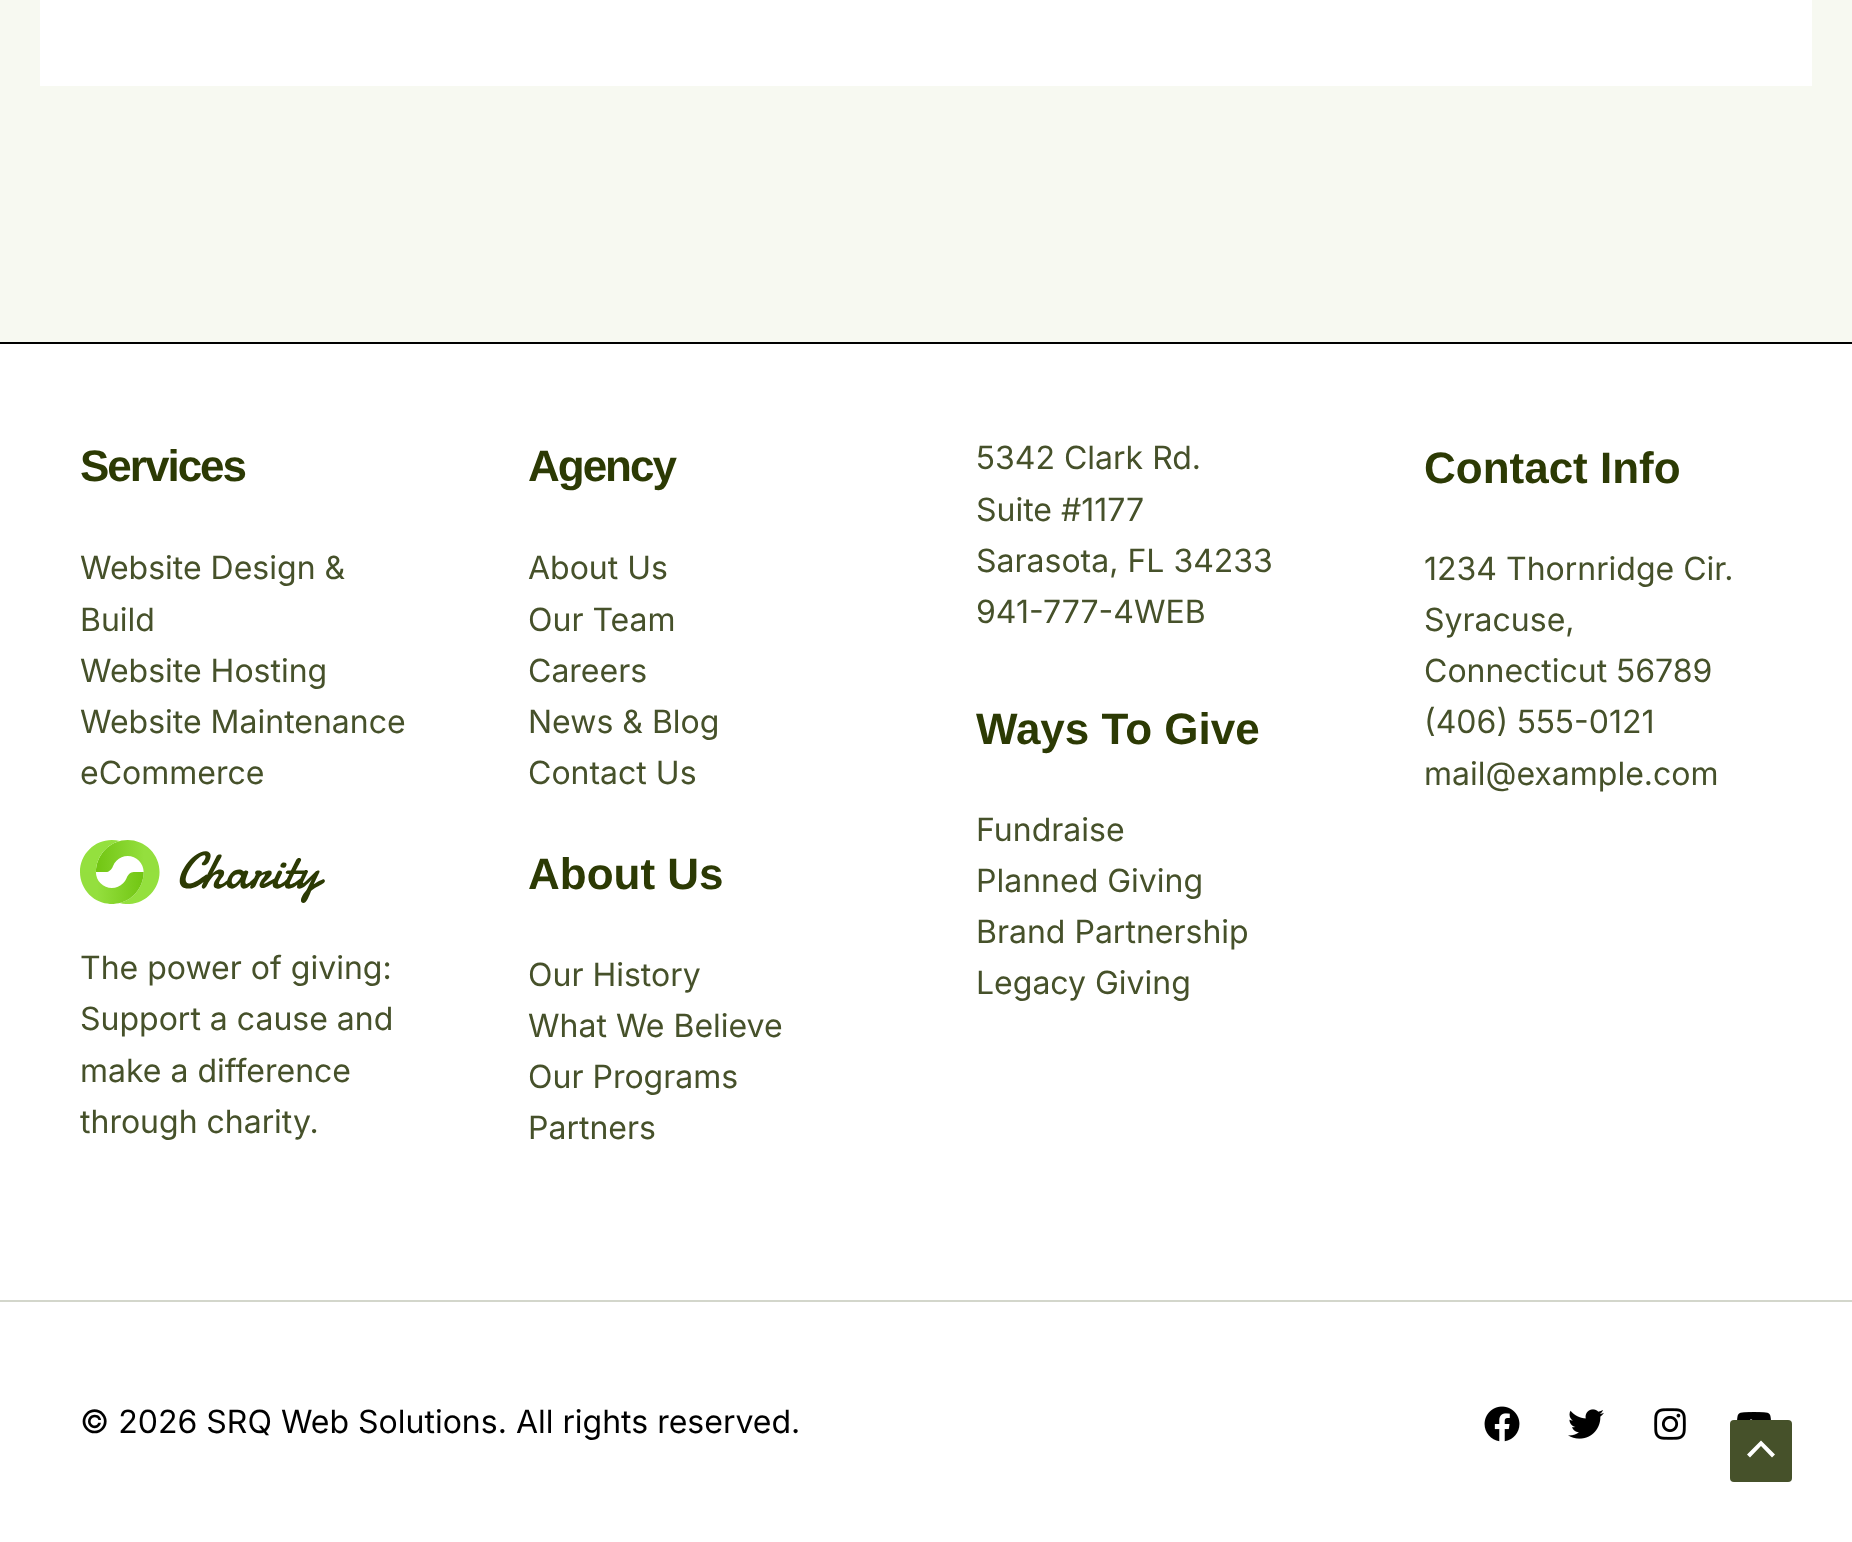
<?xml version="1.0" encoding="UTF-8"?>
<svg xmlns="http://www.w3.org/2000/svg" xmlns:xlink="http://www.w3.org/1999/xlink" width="1852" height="1542">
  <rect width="100%" height="100%" fill="#f7f9f1" />
  <rect x="40" width="1772" height="86" fill="#ffffff" />
  <rect y="344" width="1852" height="956" fill="#ffffff" />
  <rect y="342" width="1852" height="2" fill="#000000" />
  <image x="80" y="840" width="245" height="64" xlink:href="image1.png" />
  <rect y="1302" width="1852" height="240" fill="#ffffff" />
  <rect y="1300" width="1852" height="2" fill="#d3d6cb" />
  <image x="1484" y="1406" width="36" height="36" xlink:href="image2.png" />
  <image x="1568" y="1409" width="36" height="30" xlink:href="image3.png" />
  <image x="1654" y="1408" width="32" height="32" xlink:href="image4.png" />
  <image x="1737" y="1412" width="34" height="8" xlink:href="image5.png" />
  <rect x="1730" y="1420" width="62" height="62" rx="4" fill="#46512a" />
  <path d="M 1775 1454.5 l -14 -14 l -14 14 l 3 3 l 11 -11.5 l 11 11.5 z" fill="#ffffff" />
  <text x="80" y="481" style="font-family: Liberation Sans; font-size: 44px; font-weight: bold; letter-spacing: -2px; fill: #2c3a04">Services</text>
  <text x="80" y="579" style="font-family: Inter; font-size: 32px; fill: #46512a">Website Design &amp;</text>
  <text x="80" y="631" style="font-family: Inter; font-size: 32px; fill: #46512a">Build</text>
  <text x="80" y="682" style="font-family: Inter; font-size: 32px; fill: #46512a">Website Hosting</text>
  <text x="80" y="733" style="font-family: Inter; font-size: 32px; fill: #46512a">Website Maintenance</text>
  <text x="80" y="784" style="font-family: Inter; font-size: 32px; fill: #46512a">eCommerce</text>
  <text x="80" y="979" style="font-family: Inter; font-size: 32px; fill: #46512a">The power of giving:</text>
  <text x="80" y="1030" style="font-family: Inter; font-size: 32px; fill: #46512a">Support a cause and</text>
  <text x="80" y="1082" style="font-family: Inter; font-size: 32px; fill: #46512a">make a difference</text>
  <text x="80" y="1133" style="font-family: Inter; font-size: 32px; fill: #46512a">through charity.</text>
  <text x="528" y="481" style="font-family: Liberation Sans; font-size: 44px; font-weight: bold; letter-spacing: -2px; fill: #2c3a04">Agency</text>
  <text x="528" y="579" style="font-family: Inter; font-size: 32px; fill: #46512a">About Us</text>
  <text x="528" y="631" style="font-family: Inter; font-size: 32px; fill: #46512a">Our Team</text>
  <text x="528" y="682" style="font-family: Inter; font-size: 32px; fill: #46512a">Careers</text>
  <text x="528" y="733" style="font-family: Inter; font-size: 32px; fill: #46512a">News &amp; Blog</text>
  <text x="528" y="784" style="font-family: Inter; font-size: 32px; fill: #46512a">Contact Us</text>
  <text x="528" y="889" style="font-family: Liberation Sans; font-size: 44px; font-weight: bold; fill: #2c3a04">About Us</text>
  <text x="528" y="986" style="font-family: Inter; font-size: 32px; fill: #46512a">Our History</text>
  <text x="528" y="1037" style="font-family: Inter; font-size: 32px; fill: #46512a">What We Believe</text>
  <text x="528" y="1088" style="font-family: Inter; font-size: 32px; fill: #46512a">Our Programs</text>
  <text x="528" y="1139" style="font-family: Inter; font-size: 32px; fill: #46512a">Partners</text>
  <text x="976" y="469" style="font-family: Inter; font-size: 32px; fill: #46512a">5342 Clark Rd.</text>
  <text x="976" y="521" style="font-family: Inter; font-size: 32px; fill: #46512a">Suite #1177</text>
  <text x="976" y="572" style="font-family: Inter; font-size: 32px; fill: #46512a">Sarasota, FL 34233</text>
  <text x="976" y="623" style="font-family: Inter; font-size: 32px; fill: #46512a">941-777-4WEB</text>
  <text x="976" y="744" style="font-family: Liberation Sans; font-size: 44px; font-weight: bold; fill: #2c3a04">Ways To Give</text>
  <text x="976" y="841" style="font-family: Inter; font-size: 32px; fill: #46512a">Fundraise</text>
  <text x="976" y="892" style="font-family: Inter; font-size: 32px; fill: #46512a">Planned Giving</text>
  <text x="976" y="943" style="font-family: Inter; font-size: 32px; fill: #46512a">Brand Partnership</text>
  <text x="976" y="994" style="font-family: Inter; font-size: 32px; fill: #46512a">Legacy Giving</text>
  <text x="1424" y="483" style="font-family: Liberation Sans; font-size: 44px; font-weight: bold; fill: #2c3a04">Contact Info</text>
  <text x="1424" y="580" style="font-family: Inter; font-size: 32px; fill: #46512a">1234 Thornridge Cir.</text>
  <text x="1424" y="631" style="font-family: Inter; font-size: 32px; fill: #46512a">Syracuse,</text>
  <text x="1424" y="682" style="font-family: Inter; font-size: 32px; fill: #46512a">Connecticut 56789</text>
  <text x="1424" y="733" style="font-family: Inter; font-size: 32px; fill: #46512a">(406) 555-0121</text>
  <text x="1424" y="785" style="font-family: Inter; font-size: 32px; fill: #46512a">mail@example.com</text>
  <text x="80" y="1433" style="font-family: Inter; font-size: 32px; fill: #000000">© 2026 SRQ Web Solutions. All rights reserved.</text>
</svg>
